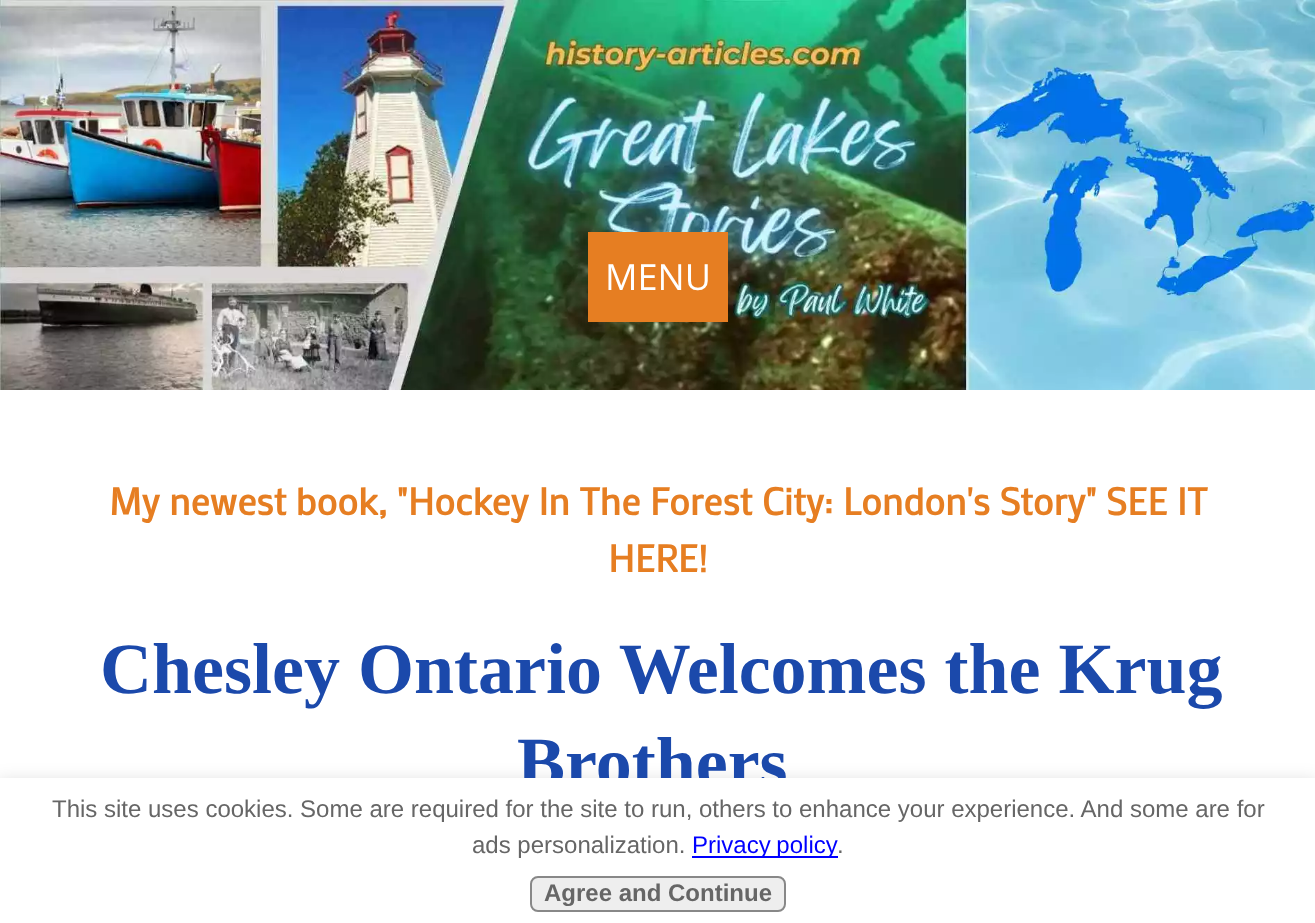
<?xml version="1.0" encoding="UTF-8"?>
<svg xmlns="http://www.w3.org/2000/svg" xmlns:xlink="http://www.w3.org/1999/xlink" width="1315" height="923">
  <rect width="100%" height="100%" fill="#ffffff" />
  <image x="0" y="0" width="1315" height="390" xlink:href="image1.png" />
  <rect x="588" y="232" width="140" height="90" fill="#e67e22" />
  <rect x="-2" y="784" width="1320" height="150" fill="#000000" fill-opacity="0.2" filter="blur(10px)" />
  <text x="605" y="290" style="font-family: Open Sans; font-size: 36px; fill: #ffffff">MENU</text>
  <text x="109" y="515" style="font-family: Mako; font-size: 38px; font-weight: bold; fill: #e67e22">My newest book, "Hockey In The Forest City: London's Story" SEE IT</text>
  <text x="608" y="572" style="font-family: Mako; font-size: 38px; font-weight: bold; fill: #e67e22">HERE!</text>
  <text x="100" y="693" style="font-family: Liberation Serif; font-size: 72px; font-weight: bold; fill: #1b49ab">Chesley Ontario Welcomes the Krug</text>
  <text x="517" y="787" style="font-family: Liberation Serif; font-size: 72px; font-weight: bold; fill: #1b49ab">Brothers</text>
  <rect y="778" width="1315" height="145" fill="#ffffff" />
  <text x="52" y="817" style="font-family: Liberation Sans; font-size: 24px; fill: #666666">This site uses cookies. Some are required for the site to run, others to enhance your experience. And some are for</text>
  <text x="472" y="853" style="font-family: Liberation Sans; font-size: 24px; fill: #666666">ads personalization.</text>
  <rect x="692" y="856" width="146" height="2" fill="#0000ff" />
  <text x="692" y="853" word-spacing="-1" style="font-family: Liberation Sans; font-size: 24px; fill: #0000ff">Privacy policy</text>
  <text x="837" y="853" style="font-family: Liberation Sans; font-size: 24px; fill: #666666">.</text>
  <rect x="531" y="877" width="254" height="34" rx="7" fill="#eeeeee" stroke="#888888" stroke-width="2" />
  <text x="544" y="901" style="font-family: Liberation Sans; font-size: 24px; font-weight: bold; fill: #666666">Agree and Continue</text>
</svg>
